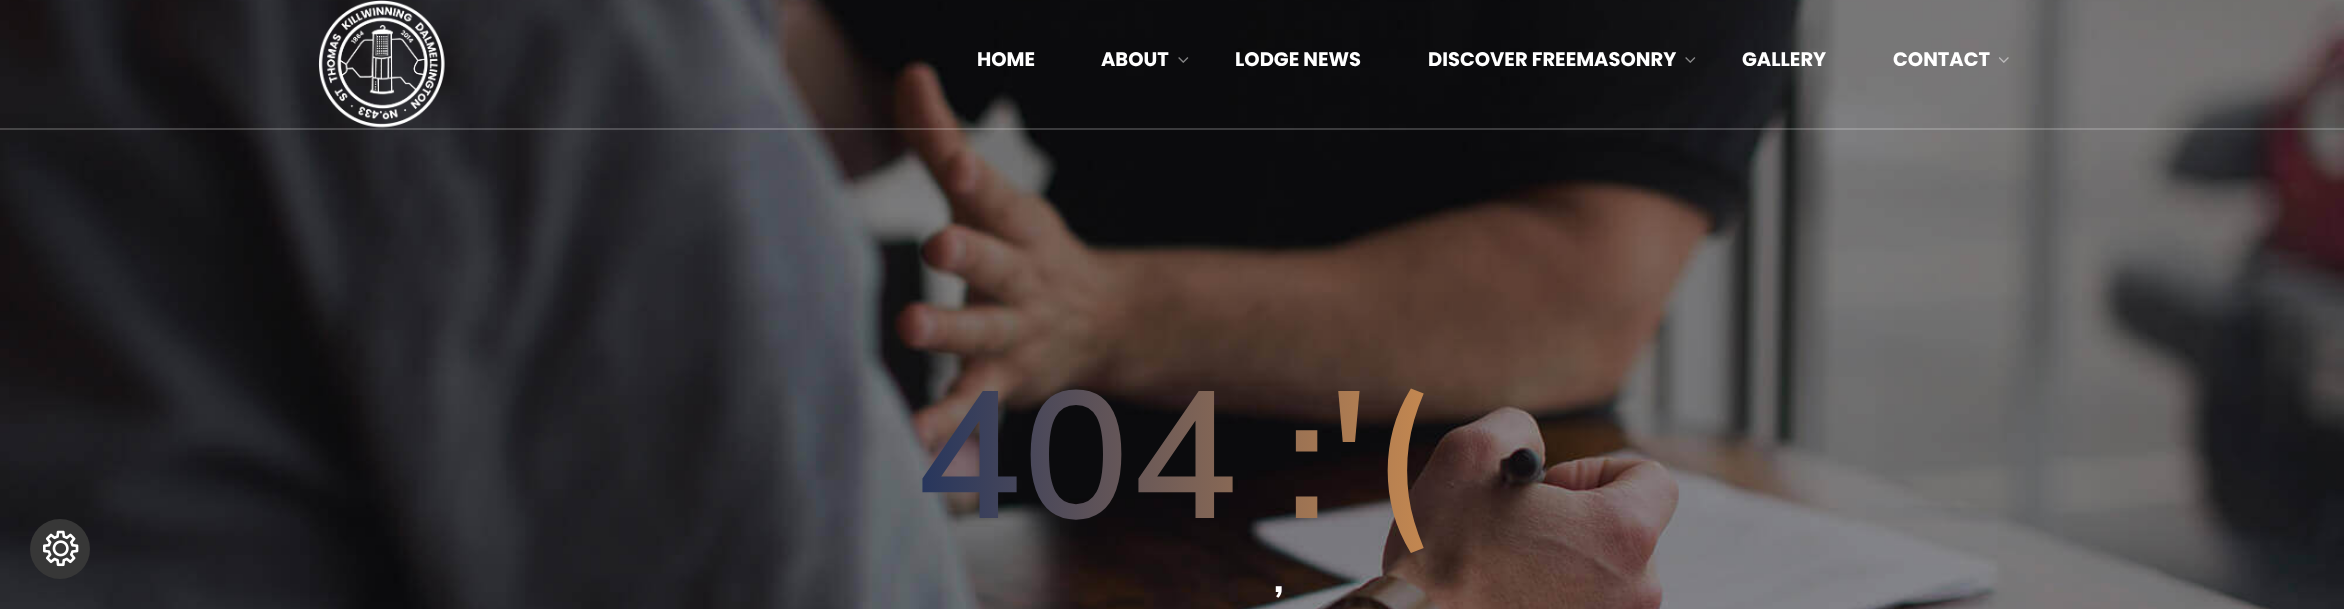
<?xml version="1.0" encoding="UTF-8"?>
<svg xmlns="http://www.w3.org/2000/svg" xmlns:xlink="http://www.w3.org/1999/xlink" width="2344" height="609">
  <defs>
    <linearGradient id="g1" gradientUnits="userSpaceOnUse" x1="914" y1="460" x2="1430" y2="460"><stop offset="0" stop-color="#25355d" /><stop offset="1" stop-color="#c58850" /></linearGradient>
  </defs>
  <rect width="100%" height="100%" fill="#ffffff" />
  <image x="0" y="0" width="2344" height="609" xlink:href="image6.png" />
  <rect y="128" width="2344" height="2" fill="#ffffff" fill-opacity="0.2" />
  <image x="318" y="0" width="127" height="128" xlink:href="image1.png" />
  <image x="1178" y="57" width="11" height="6" xlink:href="image2.png" />
  <image x="1685" y="57" width="11" height="6" xlink:href="image3.png" />
  <image x="1999" y="57" width="10" height="6" xlink:href="image4.png" />
  <circle cx="60" cy="549" r="30" fill="#373737" />
  <image x="43" y="530" width="36" height="37" xlink:href="image5.png" />
  <text x="977" y="66" style="font-family: Poppins; font-size: 19.5px; font-weight: bold; fill: #ffffff">HOME</text>
  <text x="1101" y="66" style="font-family: Poppins; font-size: 19.5px; font-weight: bold; fill: #ffffff">ABOUT</text>
  <text x="1235" y="66" style="font-family: Poppins; font-size: 19.5px; font-weight: bold; fill: #ffffff">LODGE NEWS</text>
  <text x="1428" y="66" style="font-family: Poppins; font-size: 19.5px; font-weight: bold; fill: #ffffff">DISCOVER FREEMASONRY</text>
  <text x="1742" y="66" style="font-family: Poppins; font-size: 19.5px; font-weight: bold; fill: #ffffff">GALLERY</text>
  <text x="1893" y="66" style="font-family: Poppins; font-size: 19.5px; font-weight: bold; fill: #ffffff">CONTACT</text>
  <text x="914" y="518" style="font-family: Nunito Sans; font-size: 180px; font-weight: 600; fill: url(#g1)">404 :'(</text>
  <text x="1273" y="620" style="font-family: Nunito Sans; font-size: 48px; font-weight: 600; fill: #ffffff">’</text>
</svg>
